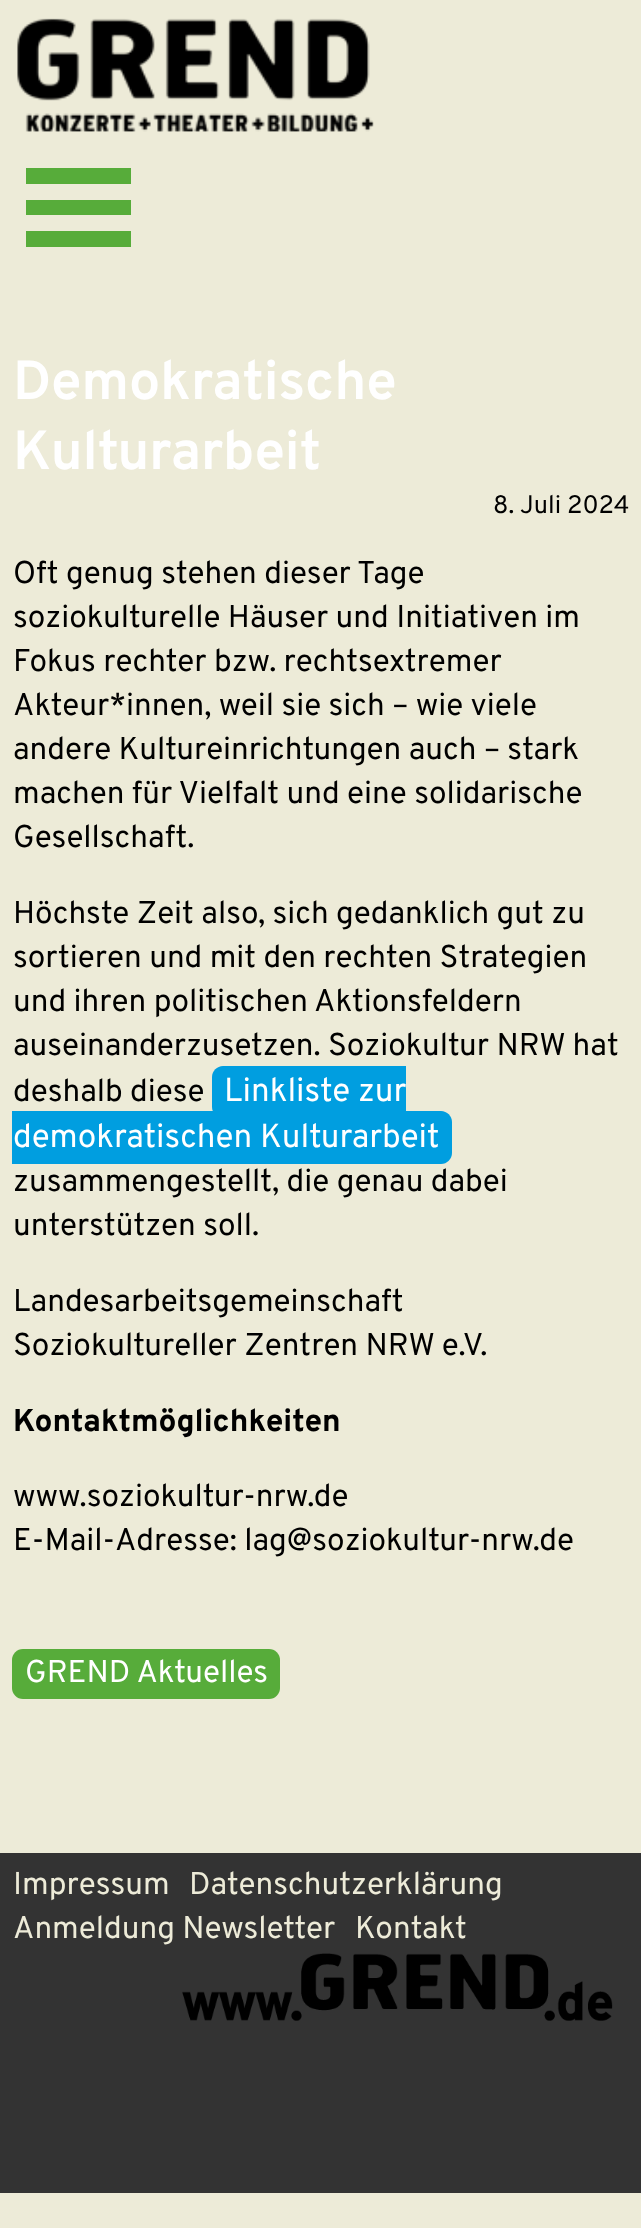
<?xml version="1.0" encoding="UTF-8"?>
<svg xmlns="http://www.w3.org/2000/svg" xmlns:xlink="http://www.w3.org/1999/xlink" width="641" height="2228">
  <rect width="100%" height="100%" fill="#edebd8" />
  <image x="17" y="18" width="357" height="114" xlink:href="image1.png" />
  <path d="M 131 184 v -16 h -105 v 16 z m 0 31 v -15 h -105 v 15 z m 0 32 v -16 h -105 v 16 z" fill="#57ac3a" />
  <path d="M 223 1066 h 183 v 52 h -183 c -6 0 -11 -5 -11 -11 v -30 c 0 -6 5 -11 11 -11 z" fill="#009ee0" />
  <path d="M 12 1111 h 429 c 6 0 11 5 11 11 v 31 c 0 6 -5 11 -11 11 h -429 z" fill="#009ee0" />
  <rect x="12" y="1649" width="268" height="50" rx="11" fill="#57ac3a" />
  <rect y="1853" width="641" height="340" fill="#333333" />
  <image x="182" y="1953" width="431" height="68" xlink:href="image2.png" />
  <text x="13" y="399" style="font-family: Overpass; font-size: 55px; font-weight: bold; fill: #ffffff">Demokratische</text>
  <text x="13" y="469" style="font-family: Overpass; font-size: 55px; font-weight: bold; fill: #ffffff">Kulturarbeit</text>
  <text x="493" y="513" style="font-family: Overpass; font-size: 25.25px; fill: #000000">8. Juli 2024</text>
  <text x="13" y="583" style="font-family: Overpass; font-size: 31.5px; fill: #000000">Oft genug stehen dieser Tage</text>
  <text x="13" y="627" style="font-family: Overpass; font-size: 31.5px; fill: #000000">soziokulturelle Häuser und Initiativen im</text>
  <text x="13" y="671" style="font-family: Overpass; font-size: 31.5px; fill: #000000">Fokus rechter bzw. rechtsextremer</text>
  <text x="13" y="715" style="font-family: Overpass; font-size: 31.5px; fill: #000000">Akteur*innen, weil sie sich – wie viele</text>
  <text x="13" y="759" style="font-family: Overpass; font-size: 31.5px; fill: #000000">andere Kultureinrichtungen auch – stark</text>
  <text x="13" y="803" style="font-family: Overpass; font-size: 31.5px; fill: #000000">machen für Vielfalt und eine solidarische</text>
  <text x="13" y="847" style="font-family: Overpass; font-size: 31.5px; fill: #000000">Gesellschaft.</text>
  <text x="13" y="923" style="font-family: Overpass; font-size: 31.5px; fill: #000000">Höchste Zeit also, sich gedanklich gut zu</text>
  <text x="13" y="967" style="font-family: Overpass; font-size: 31.5px; fill: #000000">sortieren und mit den rechten Strategien</text>
  <text x="13" y="1011" style="font-family: Overpass; font-size: 31.5px; fill: #000000">und ihren politischen Aktionsfeldern</text>
  <text x="13" y="1055" style="font-family: Overpass; font-size: 31.5px; fill: #000000">auseinanderzusetzen. Soziokultur NRW hat</text>
  <text x="13" y="1101" style="font-family: Overpass; font-size: 31.5px; fill: #000000">deshalb diese</text>
  <text x="224" y="1101" style="font-family: Overpass; font-size: 33.25px; fill: #ffffff">Linkliste zur</text>
  <text x="13" y="1147" style="font-family: Overpass; font-size: 33.25px; fill: #ffffff">demokratischen Kulturarbeit</text>
  <text x="13" y="1191" style="font-family: Overpass; font-size: 31.5px; fill: #000000">zusammengestellt, die genau dabei</text>
  <text x="13" y="1235" style="font-family: Overpass; font-size: 31.5px; fill: #000000">unterstützen soll.</text>
  <text x="13" y="1311" style="font-family: Overpass; font-size: 31.5px; fill: #000000">Landesarbeitsgemeinschaft</text>
  <text x="13" y="1355" style="font-family: Overpass; font-size: 31.5px; fill: #000000">Soziokultureller Zentren NRW e.V.</text>
  <text x="13" y="1431" style="font-family: Overpass; font-size: 31.5px; font-weight: 800; fill: #000000">Kontaktmöglichkeiten</text>
  <text x="13" y="1506" style="font-family: Overpass; font-size: 31.5px; fill: #000000">www.soziokultur-nrw.de</text>
  <text x="13" y="1550" style="font-family: Overpass; font-size: 31.5px; fill: #000000">E-Mail-Adresse: lag@soziokultur-nrw.de</text>
  <text x="25" y="1682" style="font-family: Overpass; font-size: 31.5px; fill: #ffffff">GREND Aktuelles</text>
  <text x="13" y="1894" style="font-family: Overpass; font-size: 31.5px; fill: #edebd8">Impressum</text>
  <text x="189" y="1894" style="font-family: Overpass; font-size: 31.5px; fill: #edebd8">Datenschutzerklärung</text>
  <text x="13" y="1938" style="font-family: Overpass; font-size: 31.5px; fill: #edebd8">Anmeldung Newsletter</text>
  <text x="355" y="1938" style="font-family: Overpass; font-size: 31.5px; fill: #edebd8">Kontakt</text>
</svg>
